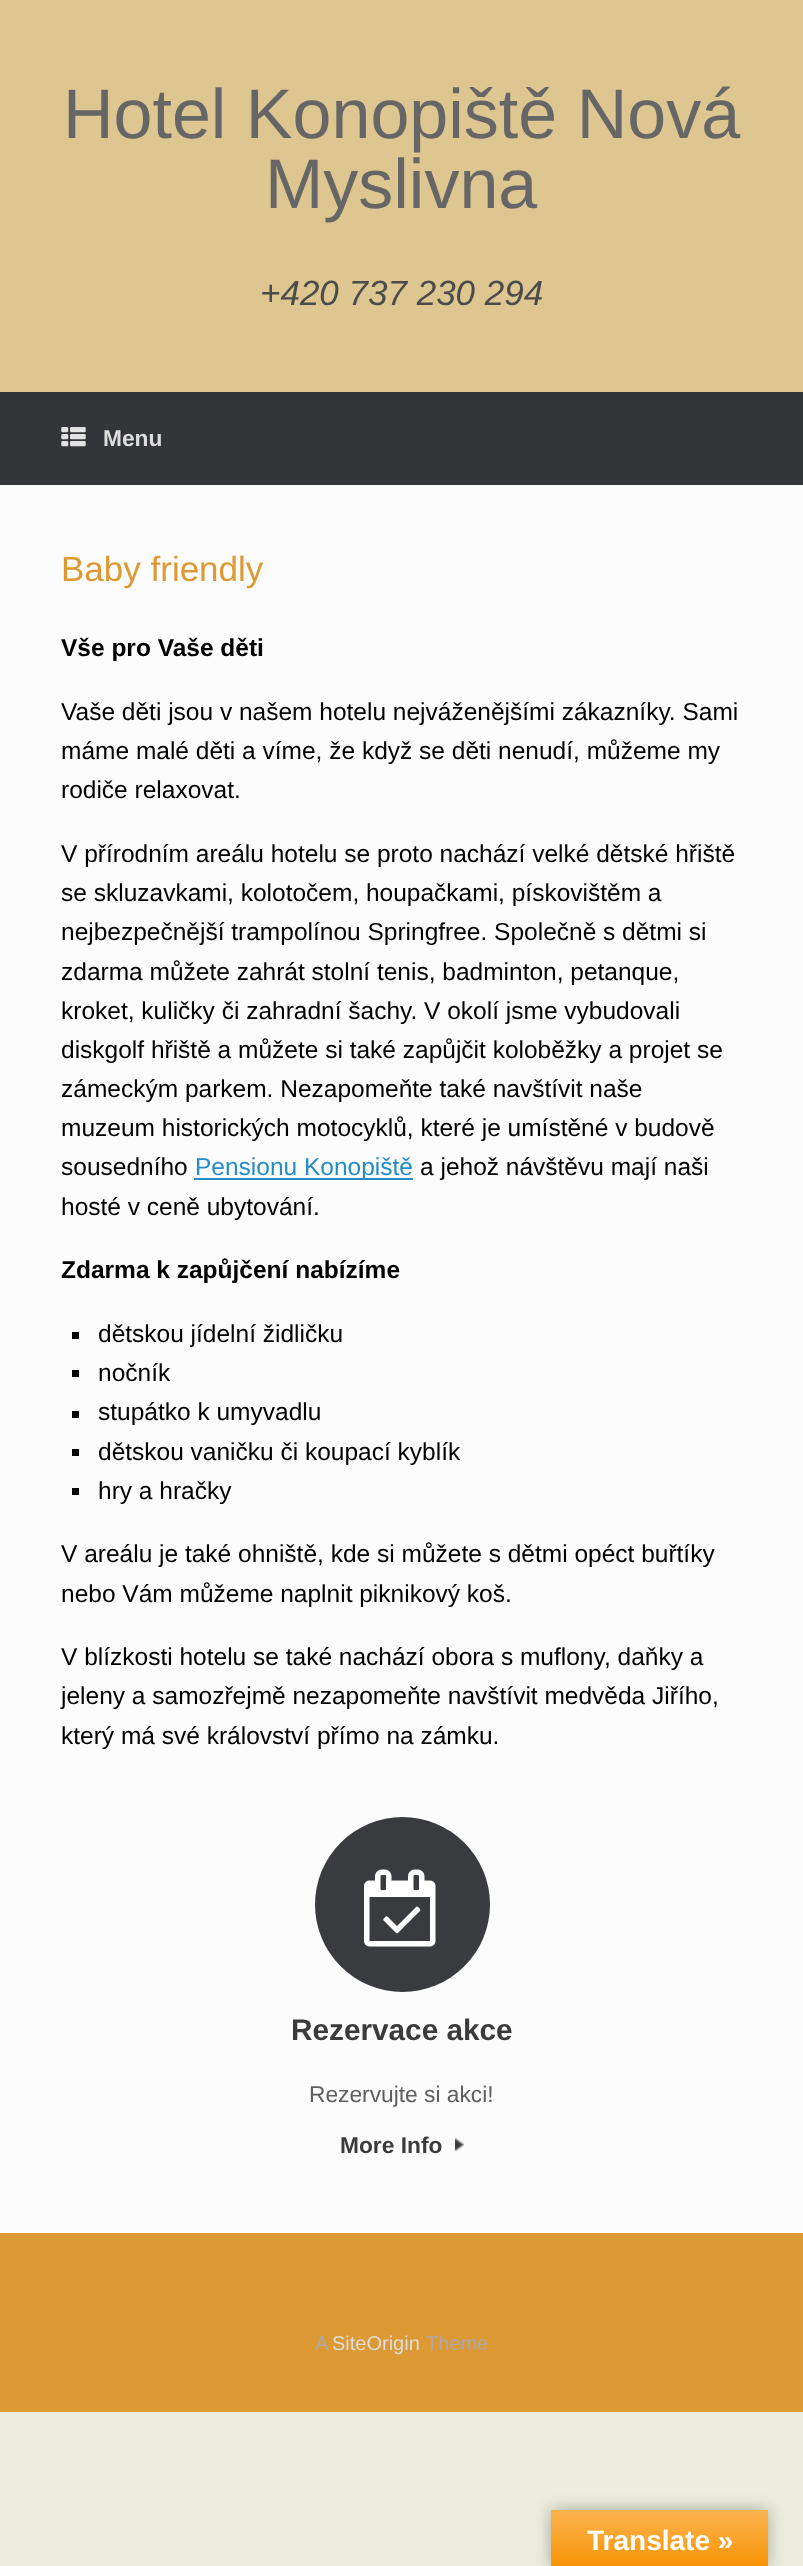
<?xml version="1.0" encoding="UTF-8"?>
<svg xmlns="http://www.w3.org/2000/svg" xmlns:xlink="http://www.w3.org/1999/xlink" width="803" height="2566">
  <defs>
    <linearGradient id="g1" gradientUnits="userSpaceOnUse" x1="660" y1="2510" x2="660" y2="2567"><stop offset="0" stop-color="#fbb450" /><stop offset="1" stop-color="#f89406" /></linearGradient>
  </defs>
  <rect width="100%" height="100%" fill="#ededde" />
  <rect width="803" height="392" fill="#ddc690" />
  <rect y="392" width="803" height="93" fill="#343538" />
  <image x="61" y="427" width="25" height="20" xlink:href="image1.png" />
  <rect y="485" width="803" height="1748" fill="#fcfcfc" />
  <rect x="194" y="1178" width="219" height="2" fill="#248cc8" />
  <rect x="72" y="1332" width="7" height="7" fill="#000000" />
  <rect x="72" y="1370" width="7" height="7" fill="#000000" />
  <rect x="72" y="1411" width="7" height="7" fill="#000000" />
  <rect x="72" y="1449" width="7" height="7" fill="#000000" />
  <rect x="72" y="1488" width="7" height="7" fill="#000000" />
  <circle cx="402.5" cy="1904.5" r="87.5" fill="#3a3b3e" />
  <image x="364" y="1869" width="72" height="78" xlink:href="image2.png" />
  <image x="455" y="2138" width="9" height="14" xlink:href="image3.png" />
  <rect y="2233" width="803" height="179" fill="#dd9933" />
  <rect x="551" y="2510" width="217" height="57" fill="#000000" fill-opacity="0.3" filter="blur(8px)" />
  <rect x="551" y="2510" width="217" height="56" fill="url(#g1)" />
  <text x="63" y="138" style="font-family: Liberation Sans; font-size: 70px; fill: #666666">Hotel Konopiště Nová</text>
  <text x="265" y="208" style="font-family: Liberation Sans; font-size: 70px; fill: #666666">Myslivna</text>
  <text x="260" y="305" style="font-family: Liberation Sans; font-size: 35px; font-style: italic; fill: #4b4b4b">+420 737 230 294</text>
  <text x="103" y="446" style="font-family: Liberation Sans; font-size: 22.75px; font-weight: bold; fill: #dddddd">Menu</text>
  <text x="61" y="581" style="font-family: Liberation Sans; font-size: 35px; fill: #dd9933">Baby friendly</text>
  <text x="61" y="656" style="font-family: Liberation Sans; font-size: 24.5px; font-weight: bold; fill: #000000">Vše pro Vaše děti</text>
  <text x="61" y="720" style="font-family: Liberation Sans; font-size: 24.5px; fill: #000000">Vaše děti jsou v našem hotelu nejváženějšími zákazníky. Sami</text>
  <text x="61" y="759" style="font-family: Liberation Sans; font-size: 24.5px; fill: #000000">máme malé děti a víme, že když se děti nenudí, můžeme my</text>
  <text x="61" y="798" style="font-family: Liberation Sans; font-size: 24.5px; fill: #000000">rodiče relaxovat.</text>
  <text x="61" y="862" style="font-family: Liberation Sans; font-size: 24.5px; fill: #000000">V přírodním areálu hotelu se proto nachází velké dětské hřiště</text>
  <text x="61" y="901" style="font-family: Liberation Sans; font-size: 24.5px; fill: #000000">se skluzavkami, kolotočem, houpačkami, pískovištěm a</text>
  <text x="61" y="940" style="font-family: Liberation Sans; font-size: 24.5px; fill: #000000">nejbezpečnější trampolínou Springfree. Společně s dětmi si</text>
  <text x="61" y="980" style="font-family: Liberation Sans; font-size: 24.5px; fill: #000000">zdarma můžete zahrát stolní tenis, badminton, petanque,</text>
  <text x="61" y="1019" style="font-family: Liberation Sans; font-size: 24.5px; fill: #000000">kroket, kuličky či zahradní šachy. V okolí jsme vybudovali</text>
  <text x="61" y="1058" style="font-family: Liberation Sans; font-size: 24.5px; fill: #000000">diskgolf hřiště a můžete si také zapůjčit koloběžky a projet se</text>
  <text x="61" y="1097" style="font-family: Liberation Sans; font-size: 24.5px; fill: #000000">zámeckým parkem. Nezapomeňte také navštívit naše</text>
  <text x="61" y="1136" style="font-family: Liberation Sans; font-size: 24.5px; fill: #000000">muzeum historických motocyklů, které je umístěné v budově</text>
  <text x="61" y="1175" style="font-family: Liberation Sans; font-size: 24.5px; fill: #000000">sousedního</text>
  <text x="195" y="1175" style="font-family: Liberation Sans; font-size: 24.5px; fill: #248cc8">Pensionu Konopiště</text>
  <text x="420" y="1175" style="font-family: Liberation Sans; font-size: 24.5px; fill: #000000">a jehož návštěvu mají naši</text>
  <text x="61" y="1215" style="font-family: Liberation Sans; font-size: 24.5px; fill: #000000">hosté v ceně ubytování.</text>
  <text x="61" y="1278" style="font-family: Liberation Sans; font-size: 24.5px; font-weight: bold; fill: #000000">Zdarma k zapůjčení nabízíme</text>
  <text x="98" y="1342" style="font-family: Liberation Sans; font-size: 24.5px; fill: #000000">dětskou jídelní židličku</text>
  <text x="98" y="1381" style="font-family: Liberation Sans; font-size: 24.5px; fill: #000000">nočník</text>
  <text x="98" y="1420" style="font-family: Liberation Sans; font-size: 24.5px; fill: #000000">stupátko k umyvadlu</text>
  <text x="98" y="1460" style="font-family: Liberation Sans; font-size: 24.5px; fill: #000000">dětskou vaničku či koupací kyblík</text>
  <text x="98" y="1499" style="font-family: Liberation Sans; font-size: 24.5px; fill: #000000">hry a hračky</text>
  <text x="61" y="1562" style="font-family: Liberation Sans; font-size: 24.5px; fill: #000000">V areálu je také ohniště, kde si můžete s dětmi opéct buřtíky</text>
  <text x="61" y="1602" style="font-family: Liberation Sans; font-size: 24.5px; fill: #000000">nebo Vám můžeme naplnit piknikový koš.</text>
  <text x="61" y="1665" style="font-family: Liberation Sans; font-size: 24.5px; fill: #000000">V blízkosti hotelu se také nachází obora s muflony, daňky a</text>
  <text x="61" y="1704" style="font-family: Liberation Sans; font-size: 24.5px; fill: #000000">jeleny a samozřejmě nezapomeňte navštívit medvěda Jiřího,</text>
  <text x="61" y="1744" style="font-family: Liberation Sans; font-size: 24.5px; fill: #000000">který má své království přímo na zámku.</text>
  <text x="291" y="2040" style="font-family: Liberation Sans; font-size: 29.75px; font-weight: bold; fill: #3b3b3b">Rezervace akce</text>
  <text x="309" y="2102" style="font-family: Liberation Sans; font-size: 22.75px; fill: #5e5e5e">Rezervujte si akci!</text>
  <text x="340" y="2153" style="font-family: Liberation Sans; font-size: 22.75px; font-weight: bold; fill: #3b3b3b">More Info</text>
  <text x="315" y="2350" style="font-family: Liberation Sans; font-size: 20px; fill: #aaaaaa">A</text>
  <text x="332" y="2350" style="font-family: Liberation Sans; font-size: 20px; fill: #dddddd">SiteOrigin</text>
  <text x="426" y="2350" style="font-family: Liberation Sans; font-size: 20px; fill: #aaaaaa">Theme</text>
  <text x="587" y="2550" style="font-family: Liberation Sans; font-size: 28px; font-weight: bold; fill: #ffffff">Translate »</text>
</svg>
